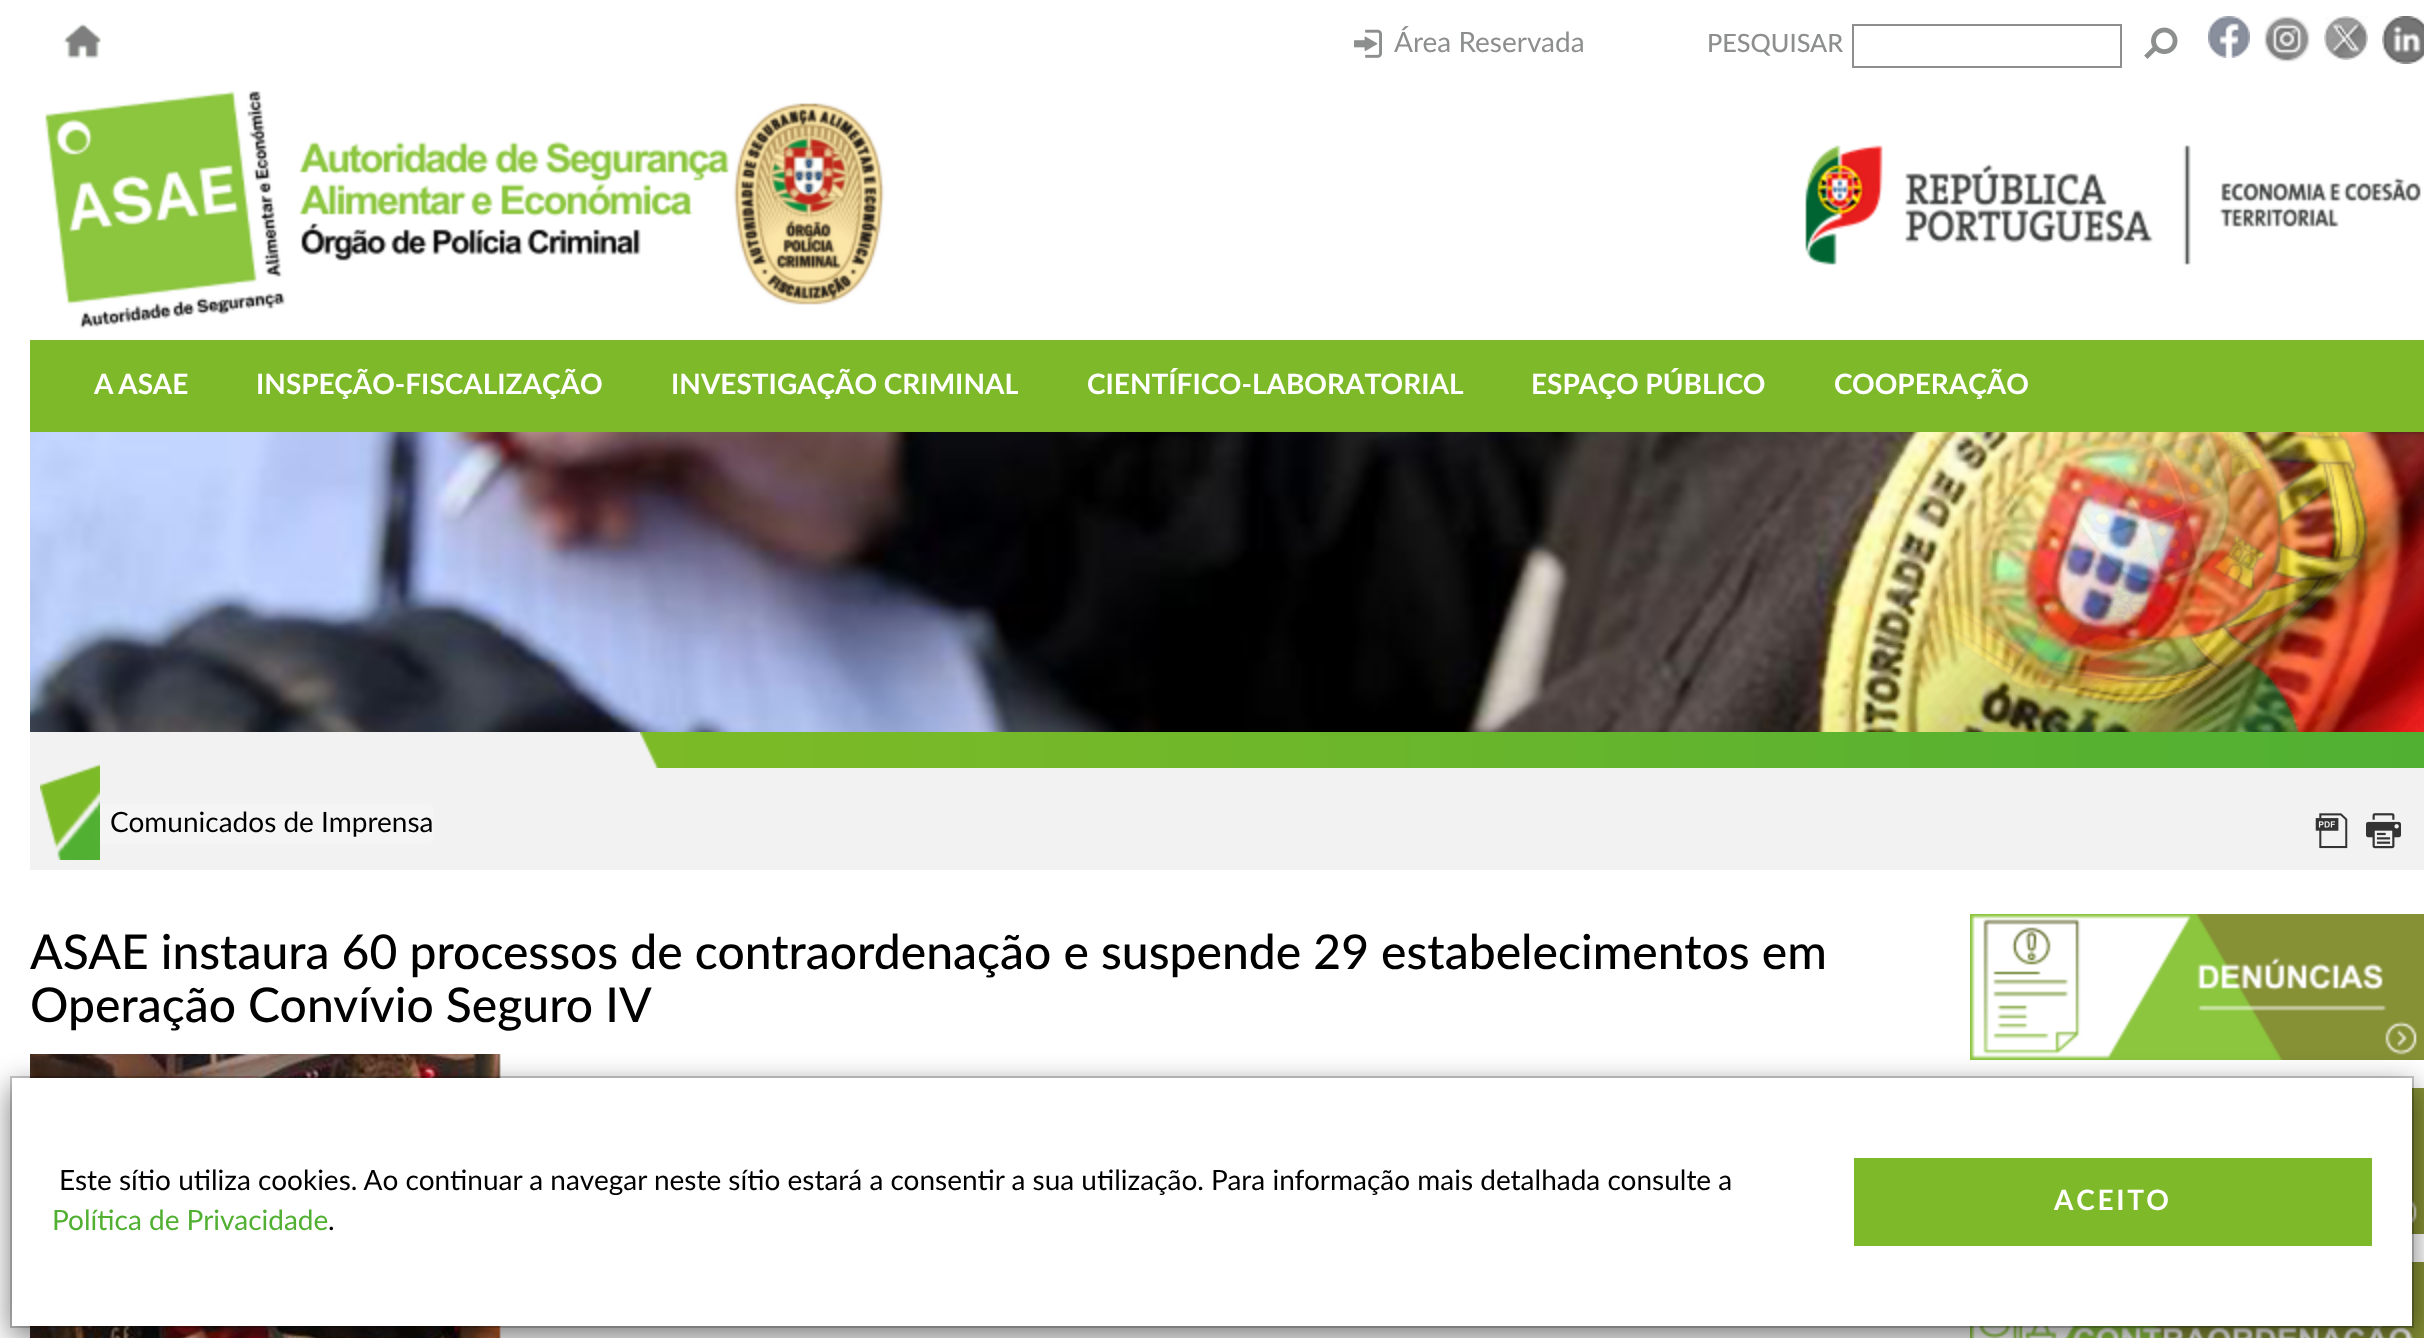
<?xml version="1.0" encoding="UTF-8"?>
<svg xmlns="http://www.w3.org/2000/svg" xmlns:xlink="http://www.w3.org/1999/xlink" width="2424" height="1338">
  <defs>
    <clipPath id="clip1"><rect x="670" y="366" width="348" height="40" /></clipPath>
  </defs>
  <rect width="100%" height="100%" fill="#ffffff" />
  <image x="63" y="23" width="38" height="36" xlink:href="image1.png" />
  <image x="1354" y="29" width="28" height="29" xlink:href="image2.png" />
  <rect x="1853" y="25" width="268" height="42" fill="none" stroke="#8d8f8e" stroke-width="2" />
  <image x="2144" y="27" width="34" height="32" xlink:href="image3.png" />
  <image x="2208" y="16" width="42" height="42" xlink:href="image4.png" />
  <image x="2264" y="16" width="46" height="46" xlink:href="image5.png" />
  <image x="2324" y="16" width="44" height="44" xlink:href="image6.png" />
  <image x="2382" y="16" width="42" height="48" xlink:href="image7.png" />
  <image x="45" y="91" width="840" height="238" xlink:href="image8.png" />
  <image x="1805" y="145" width="616" height="120" xlink:href="image9.png" />
  <rect x="30" y="340" width="2394" height="92" fill="#7eb929" />
  <image x="30" y="432" width="2394" height="300" xlink:href="image10.png" />
  <image x="1819" y="432" width="605" height="300" xlink:href="image11.png" />
  <rect x="30" y="732" width="629" height="36" fill="#f2f2f2" />
  <image x="640" y="732" width="1784" height="36" xlink:href="image12.png" />
  <rect x="30" y="768" width="2394" height="102" fill="#f2f2f2" />
  <rect x="60" y="804" width="374" height="40" rx="8" fill="#f5f5f5" />
  <image x="40" y="764" width="60" height="96" xlink:href="image13.png" />
  <image x="2315" y="813" width="33" height="36" xlink:href="image14.png" />
  <image x="2366" y="813" width="35" height="36" xlink:href="image15.png" />
  <image x="30" y="1054" width="471" height="284" xlink:href="image16.png" />
  <image x="1970" y="914" width="454" height="146" xlink:href="image17.png" />
  <image x="2412" y="1088" width="12" height="146" xlink:href="image18.png" />
  <image x="1970" y="1262" width="454" height="76" xlink:href="image19.png" />
  <rect x="10" y="1086" width="2404" height="252" fill="#000000" fill-opacity="0.5" filter="blur(15px)" />
  <rect x="12" y="1078" width="2400" height="248" fill="#ffffff" />
  <rect x="11" y="1077" width="2402" height="250" fill="none" stroke="#000000" stroke-opacity="0.2" stroke-width="2" />
  <rect x="1854" y="1158" width="518" height="88" fill="#7eb929" />
  <text x="1394" y="52" style="font-family: Lato; font-size: 28px; fill: #8d8f8e">Área Reservada</text>
  <text x="1707" y="52" style="font-family: Lato; font-size: 25.25px; font-weight: 500; fill: #8d8f8e">PESQUISAR</text>
  <text x="94" y="394" style="font-family: Lato; font-size: 28px; font-weight: bold; fill: #ffffff">A ASAE</text>
  <text x="256" y="394" style="font-family: Lato; font-size: 28px; font-weight: bold; fill: #ffffff">INSPEÇÃO-FISCALIZAÇÃO</text>
  <g clip-path="url(#clip1)">
    <text x="671" y="394" style="font-family: Lato; font-size: 28px; font-weight: bold; fill: #ffffff">INVESTIGAÇÃO CRIMINAL</text>
  </g>
  <text x="1087" y="394" style="font-family: Lato; font-size: 28px; font-weight: bold; fill: #ffffff">CIENTÍFICO-LABORATORIAL</text>
  <text x="1531" y="394" style="font-family: Lato; font-size: 28px; font-weight: bold; fill: #ffffff">ESPAÇO PÚBLICO</text>
  <text x="1834" y="394" style="font-family: Lato; font-size: 28px; font-weight: bold; fill: #ffffff">COOPERAÇÃO</text>
  <text x="110" y="832" style="font-family: Lato; font-size: 28px; fill: #000000">Comunicados de Imprensa</text>
  <text x="30" y="969" style="font-family: Lato; font-size: 48px; font-weight: 500; fill: #000000">ASAE instaura 60 processos de contraordenação e suspende 29 estabelecimentos em</text>
  <text x="30" y="1022" style="font-family: Lato; font-size: 48px; font-weight: 500; fill: #000000">Operação Convívio Seguro IV</text>
  <text x="59" y="1190" style="font-family: Lato; font-size: 28px; fill: #000000">Este sítio utiliza cookies. Ao continuar a navegar neste sítio estará a consentir a sua utilização. Para informação mais detalhada consulte a</text>
  <text x="52" y="1230" style="font-family: Lato; font-size: 28px; fill: #51b032">Política de Privacidade</text>
  <text x="328" y="1230" style="font-family: Lato; font-size: 28px; fill: #000000">.</text>
  <text x="2054" y="1210" style="font-family: Lato; font-size: 28px; font-weight: bold; letter-spacing: 2.75px; fill: #ffffff">ACEITO</text>
</svg>
